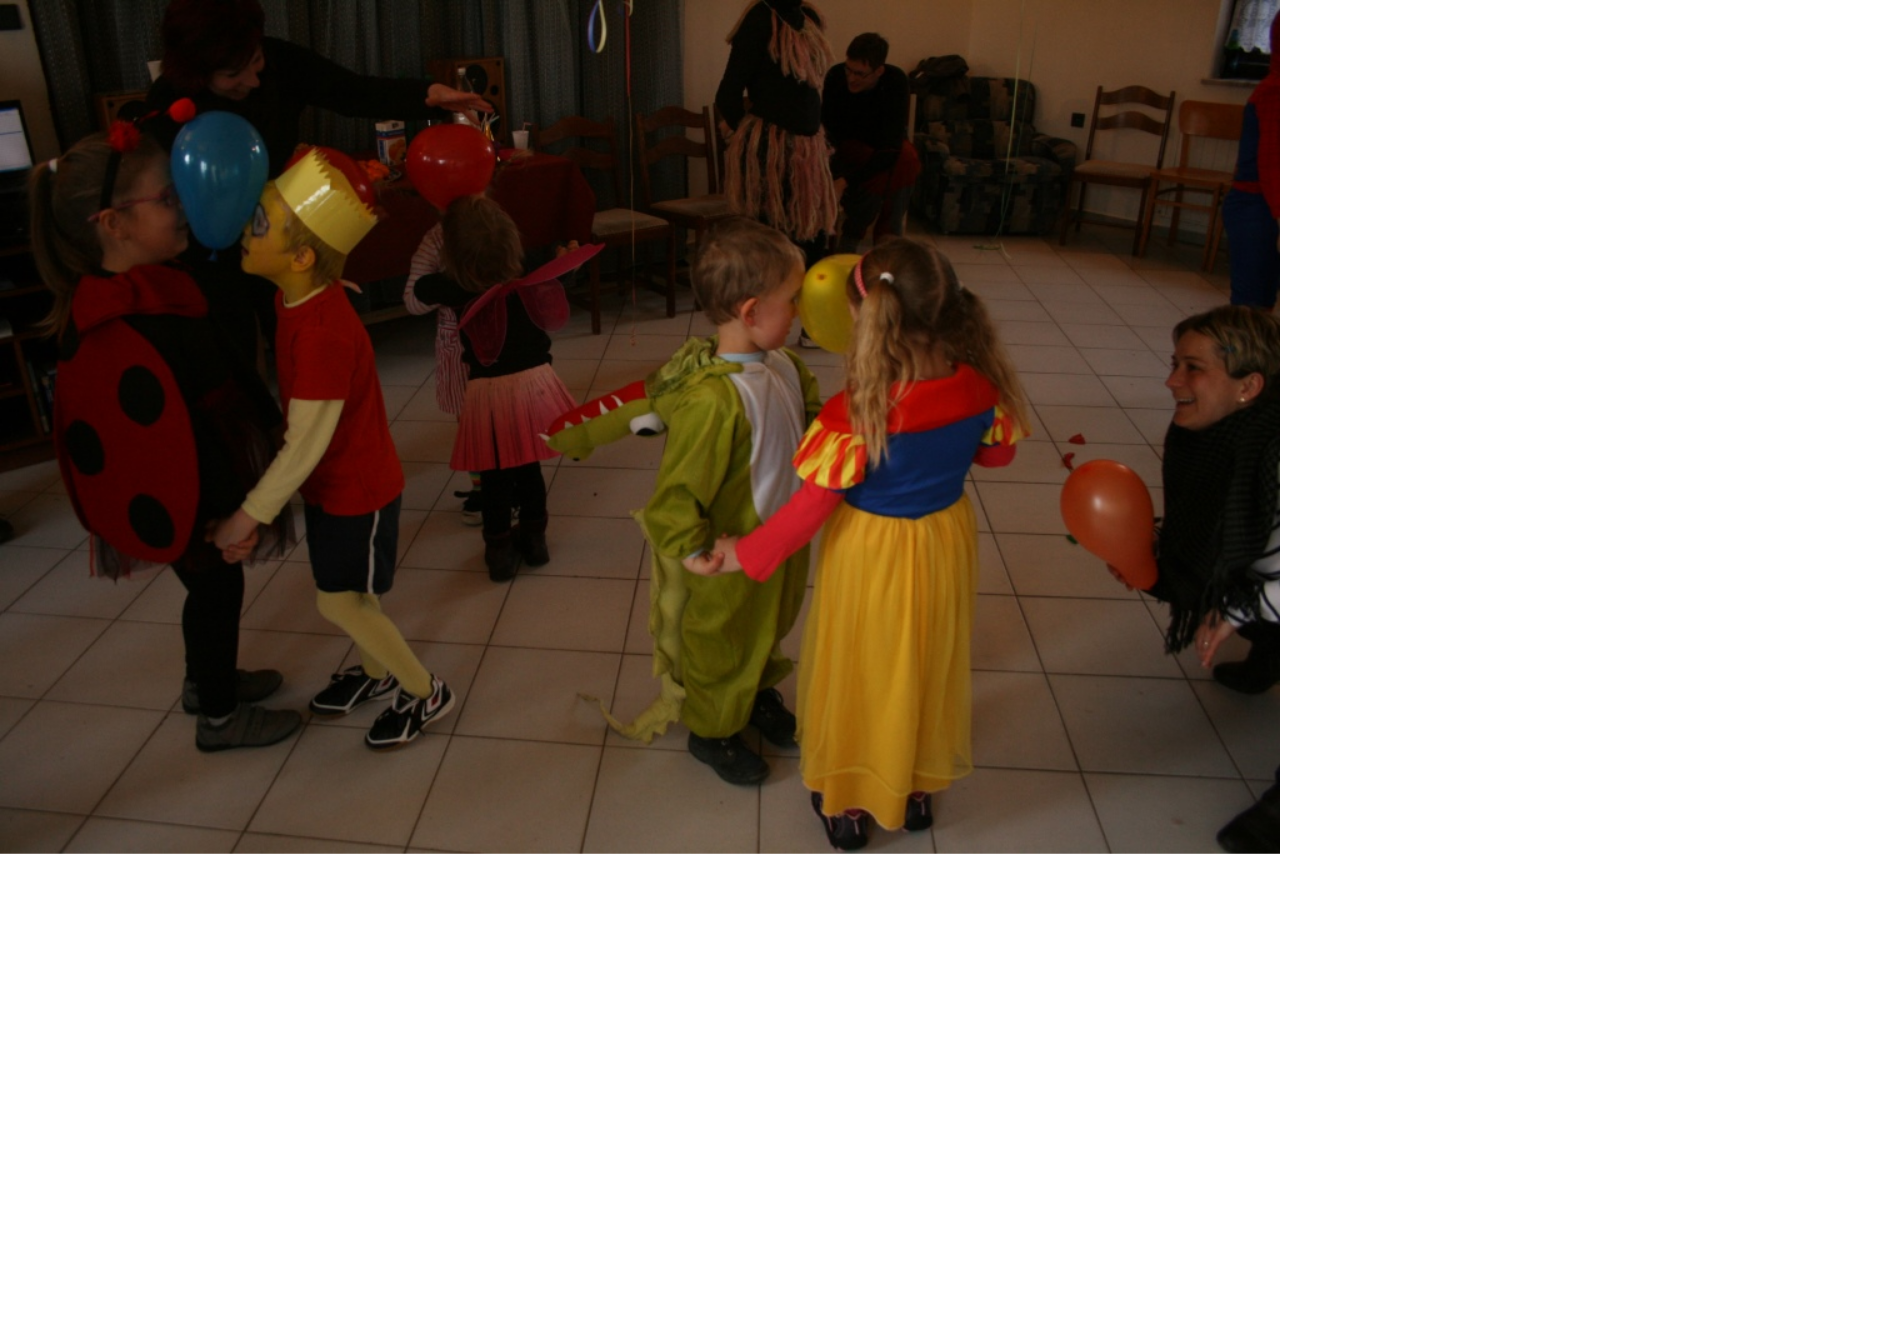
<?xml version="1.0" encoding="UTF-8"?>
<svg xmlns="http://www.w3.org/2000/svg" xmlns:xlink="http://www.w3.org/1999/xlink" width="1883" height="1331">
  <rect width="100%" height="100%" fill="#ffffff" />
  <image x="0" y="0" width="1280" height="854" xlink:href="image1.png" />
</svg>
